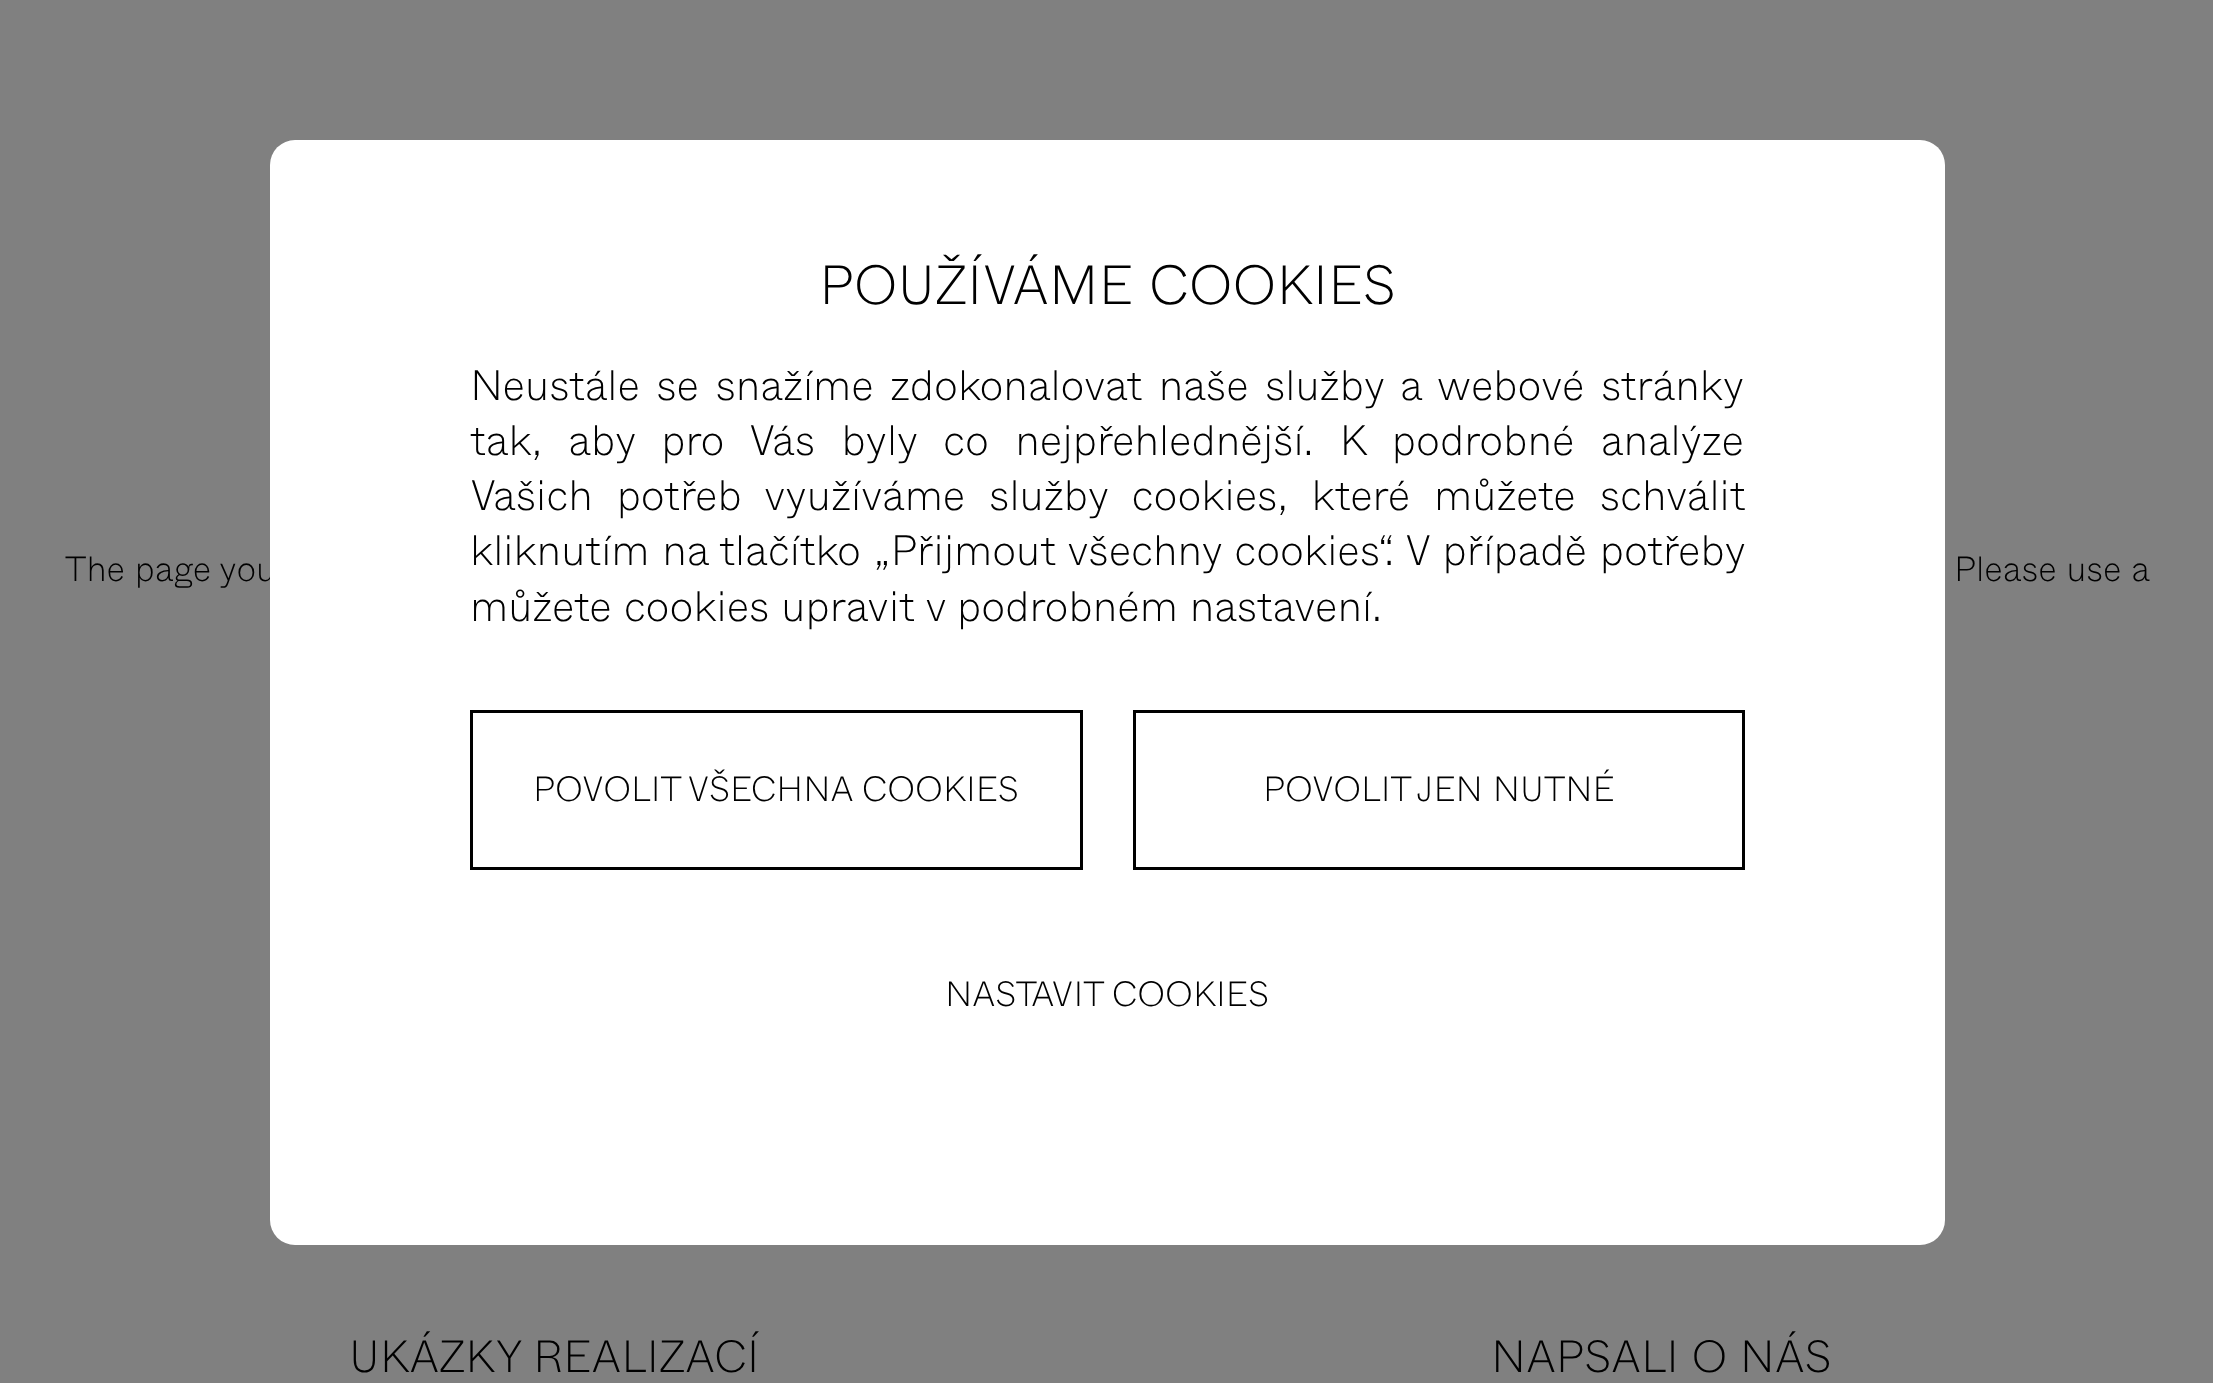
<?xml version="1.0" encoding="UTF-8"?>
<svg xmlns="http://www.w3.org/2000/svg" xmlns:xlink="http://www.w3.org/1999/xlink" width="2213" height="1383">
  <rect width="100%" height="100%" fill="#808080" />
  <text x="65" y="581" style="font-family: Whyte; font-size: 35px; font-weight: 200; fill: #000000">The page you</text>
  <rect x="270" y="140" width="1675" height="1105" rx="25" fill="#ffffff" />
  <rect x="1134.5" y="711.5" width="609" height="157" fill="none" stroke="#000000" stroke-width="3" />
  <text x="1263" y="801" style="font-family: Whyte; font-size: 35px; font-weight: 200; fill: #000000">POVOLIT JEN NUTNÉ</text>
  <rect x="471.5" y="711.5" width="610" height="157" fill="none" stroke="#000000" stroke-width="3" />
  <text x="533" y="801" style="font-family: Whyte; font-size: 35px; font-weight: 200; fill: #000000">POVOLIT VŠECHNA COOKIES</text>
  <text x="945" y="1006" style="font-family: Whyte; font-size: 35px; font-weight: 200; fill: #000000">NASTAVIT COOKIES</text>
  <text x="470" y="621" style="font-family: Whyte; font-size: 42.5px; font-weight: 200; fill: #000000">můžete cookies upravit v podrobném nastavení.</text>
  <text x="470" y="565" word-spacing="1" style="font-family: Whyte; font-size: 42.5px; font-weight: 200; fill: #000000">kliknutím na tlačítko „Přijmout všechny cookies“. V případě potřeby</text>
  <text x="470" y="510" word-spacing="12" style="font-family: Whyte; font-size: 42.5px; font-weight: 200; fill: #000000">Vašich potřeb využíváme služby cookies, které můžete schválit</text>
  <text x="470" y="455" word-spacing="14.5" style="font-family: Whyte; font-size: 42.5px; font-weight: 200; fill: #000000">tak, aby pro Vás byly co nejpřehlednější. K podrobné analýze</text>
  <text x="470" y="400" word-spacing="4.5" style="font-family: Whyte; font-size: 42.5px; font-weight: 200; fill: #000000">Neustále se snažíme zdokonalovat naše služby a webové stránky</text>
  <text x="819" y="304" style="font-family: Whyte; font-size: 55px; font-weight: 200; fill: #000000">POUŽÍVÁME COOKIES</text>
  <text x="1954" y="581" style="font-family: Whyte; font-size: 35px; font-weight: 200; fill: #000000">Please use a</text>
  <text x="349" y="1372" style="font-family: Whyte; font-size: 45px; font-weight: 200; fill: #000000">UKÁZKY REALIZACÍ</text>
  <text x="1491" y="1372" style="font-family: Whyte; font-size: 45px; font-weight: 200; fill: #000000">NAPSALI O NÁS</text>
</svg>
